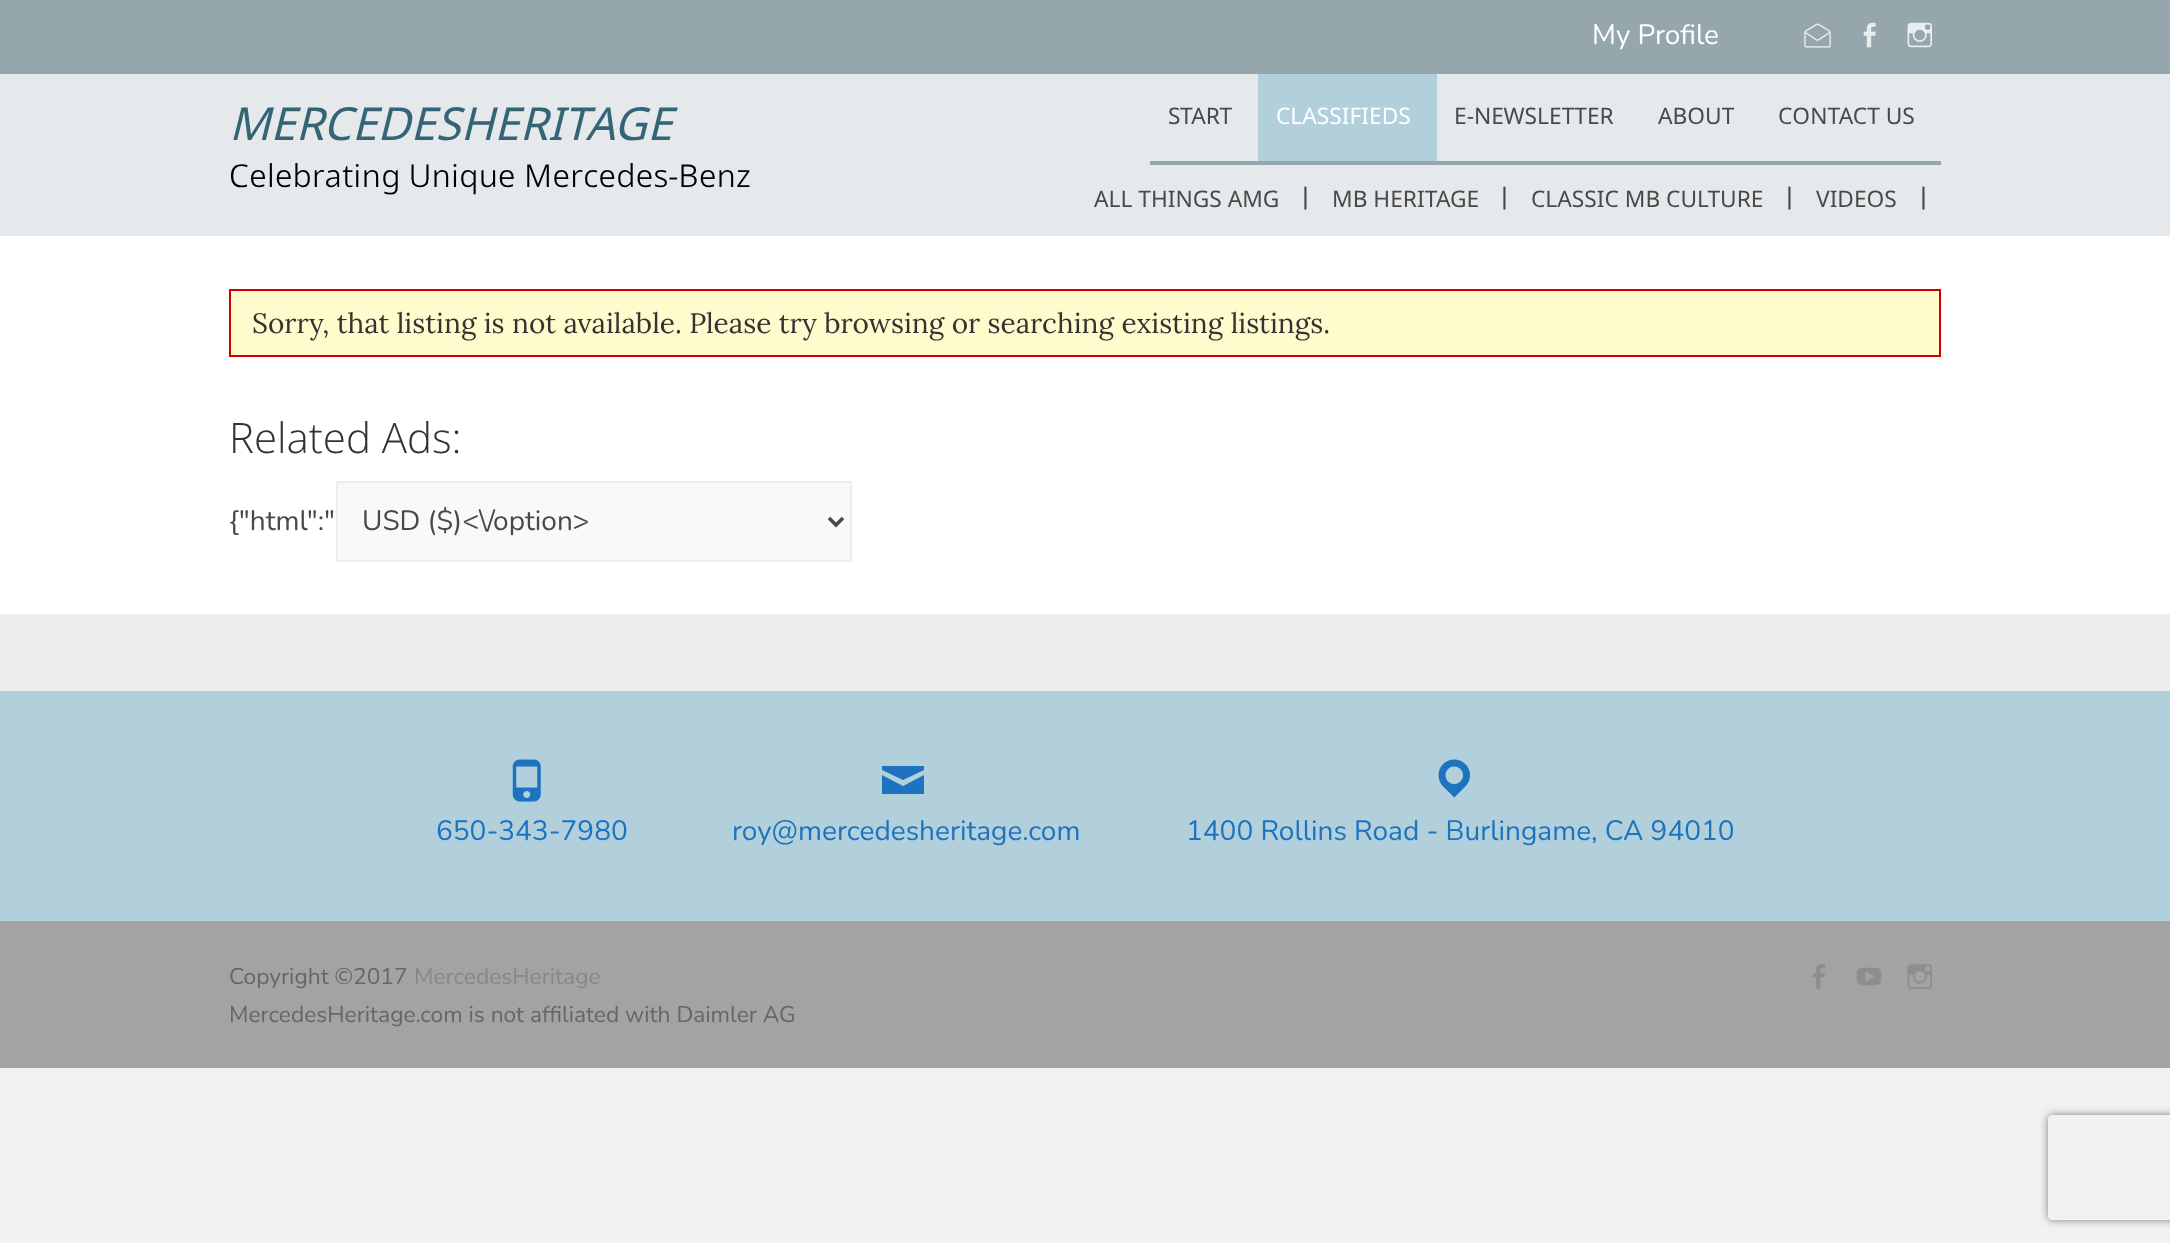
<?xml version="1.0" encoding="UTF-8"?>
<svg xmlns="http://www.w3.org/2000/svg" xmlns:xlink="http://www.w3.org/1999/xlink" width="2170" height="1243">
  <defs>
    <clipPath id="clip1"><path d="M 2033 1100 h 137 v 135 h -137 z m 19 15 h 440 c 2 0 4 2 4 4 v 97 c 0 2 -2 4 -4 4 h -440 c -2 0 -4 -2 -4 -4 v -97 c 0 -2 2 -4 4 -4 z" clip-rule="evenodd" /></clipPath>
  </defs>
  <rect width="100%" height="100%" fill="#f2f2f2" />
  <rect y="614" width="2170" height="77" fill="#ededed" />
  <rect width="2170" height="74" fill="#95a6ad" />
  <image x="1804" y="23" width="27" height="25" xlink:href="image1.png" />
  <image x="1863" y="22" width="13" height="26" xlink:href="image2.png" />
  <image x="1907" y="22" width="25" height="26" xlink:href="image3.png" />
  <rect y="74" width="2170" height="162" fill="#e6e9eb" />
  <rect x="1150" y="161" width="791" height="4" fill="#95a6ad" />
  <rect x="1258" y="74" width="179" height="87" fill="#b1d0dc" />
  <rect y="236" width="2170" height="378" fill="#ffffff" />
  <rect x="230" y="290" width="1710" height="66" fill="#fffbcc" stroke="#cc0000" stroke-width="2" />
  <rect x="337" y="482" width="514" height="79" fill="#f9f9f9" stroke="#ededed" stroke-width="2" />
  <path d="M 829 518 l 7 7 l 7 -7" fill="none" stroke="#494949" stroke-width="3.5" />
  <rect y="691" width="2170" height="230" fill="#b1d0dc" />
  <image x="512" y="759" width="29" height="43" xlink:href="image4.png" />
  <path d="M 882 766 h 42 v 4 l -21 10 l -21 -10 z m 0 9 l 21 11 l 21 -11 v 19 h -42 z" fill="#1e73be" />
  <image x="1438" y="759" width="32" height="39" xlink:href="image5.png" />
  <rect y="921" width="2170" height="147" fill="#a3a3a3" />
  <image x="1813" y="964" width="12" height="25" xlink:href="image6.png" />
  <image x="1856" y="967" width="26" height="19" xlink:href="image7.png" />
  <image x="1907" y="964" width="25" height="25" xlink:href="image8.png" />
  <g clip-path="url(#clip1)">
    <rect x="2048" y="1115" width="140" height="105" rx="4" fill="#808080" filter="blur(4.5px)" />
  </g>
  <text x="1592" y="44" style="font-family: Nunito; font-size: 28px; font-weight: 200; fill: #ffffff">My Profile</text>
  <text x="229" y="140" style="font-family: Nokora; font-size: 45.5px; font-style: italic; fill: #356476">MERCEDESHERITAGE</text>
  <text x="229" y="187" style="font-family: Nokora; font-size: 31.5px; font-weight: 300; fill: #000000">Celebrating Unique Mercedes-Benz</text>
  <text x="1168" y="124" style="font-family: Nokora; font-size: 22.75px; fill: #494949">START</text>
  <text x="1276" y="124" style="font-family: Nokora; font-size: 22.75px; fill: #ffffff">CLASSIFIEDS</text>
  <text x="1454" y="124" style="font-family: Nokora; font-size: 22.75px; fill: #494949">E-NEWSLETTER</text>
  <text x="1658" y="124" style="font-family: Nokora; font-size: 22.75px; fill: #494949">ABOUT</text>
  <text x="1778" y="124" style="font-family: Nokora; font-size: 22.75px; fill: #494949">CONTACT US</text>
  <text x="1094" y="207" style="font-family: Nokora; font-size: 22.75px; fill: #494949">ALL THINGS AMG</text>
  <text x="1302" y="205" style="font-family: Nunito; font-size: 26px; font-weight: 200; fill: #494949">|</text>
  <text x="1332" y="207" style="font-family: Nokora; font-size: 22.75px; fill: #494949">MB HERITAGE</text>
  <text x="1501" y="205" style="font-family: Nunito; font-size: 26px; font-weight: 200; fill: #494949">|</text>
  <text x="1531" y="207" style="font-family: Nokora; font-size: 22.75px; fill: #494949">CLASSIC MB CULTURE</text>
  <text x="1786" y="205" style="font-family: Nunito; font-size: 26px; font-weight: 200; fill: #494949">|</text>
  <text x="1816" y="207" style="font-family: Nokora; font-size: 22.75px; fill: #494949">VIDEOS</text>
  <text x="1920" y="205" style="font-family: Nunito; font-size: 26px; font-weight: 200; fill: #494949">|</text>
  <text x="252" y="333" style="font-family: Lora; font-size: 28px; fill: #333333">Sorry, that listing is not available. Please try browsing or searching existing listings.</text>
  <text x="229" y="453" style="font-family: Open Sans; font-size: 42px; font-weight: 300; fill: #333333">Related Ads:</text>
  <text x="229" y="530" style="font-family: Nunito; font-size: 28px; font-weight: 200; fill: #494949">{"html":"</text>
  <text x="362" y="530" style="font-family: Nunito; font-size: 28px; font-weight: 200; fill: #494949">USD ($)&lt;\/option&gt;</text>
  <text x="436" y="840" style="font-family: Nunito; font-size: 28px; font-weight: 200; fill: #1e73be">650-343-7980</text>
  <text x="732" y="840" style="font-family: Nunito; font-size: 28px; font-weight: 200; fill: #1e73be">roy@mercedesheritage.com</text>
  <text x="1186" y="840" style="font-family: Nunito; font-size: 28px; font-weight: 200; fill: #1e73be">1400 Rollins Road - Burlingame, CA 94010</text>
  <text x="229" y="984" style="font-family: Nunito; font-size: 22.75px; font-weight: 200; fill: #666666">Copyright ©2017</text>
  <text x="414" y="984" style="font-family: Nunito; font-size: 22.75px; font-weight: 200; fill: #888888">MercedesHeritage</text>
  <text x="229" y="1022" style="font-family: Nunito; font-size: 22.75px; font-weight: 200; fill: #666666">MercedesHeritage.com is not affiliated with Daimler AG</text>
</svg>
